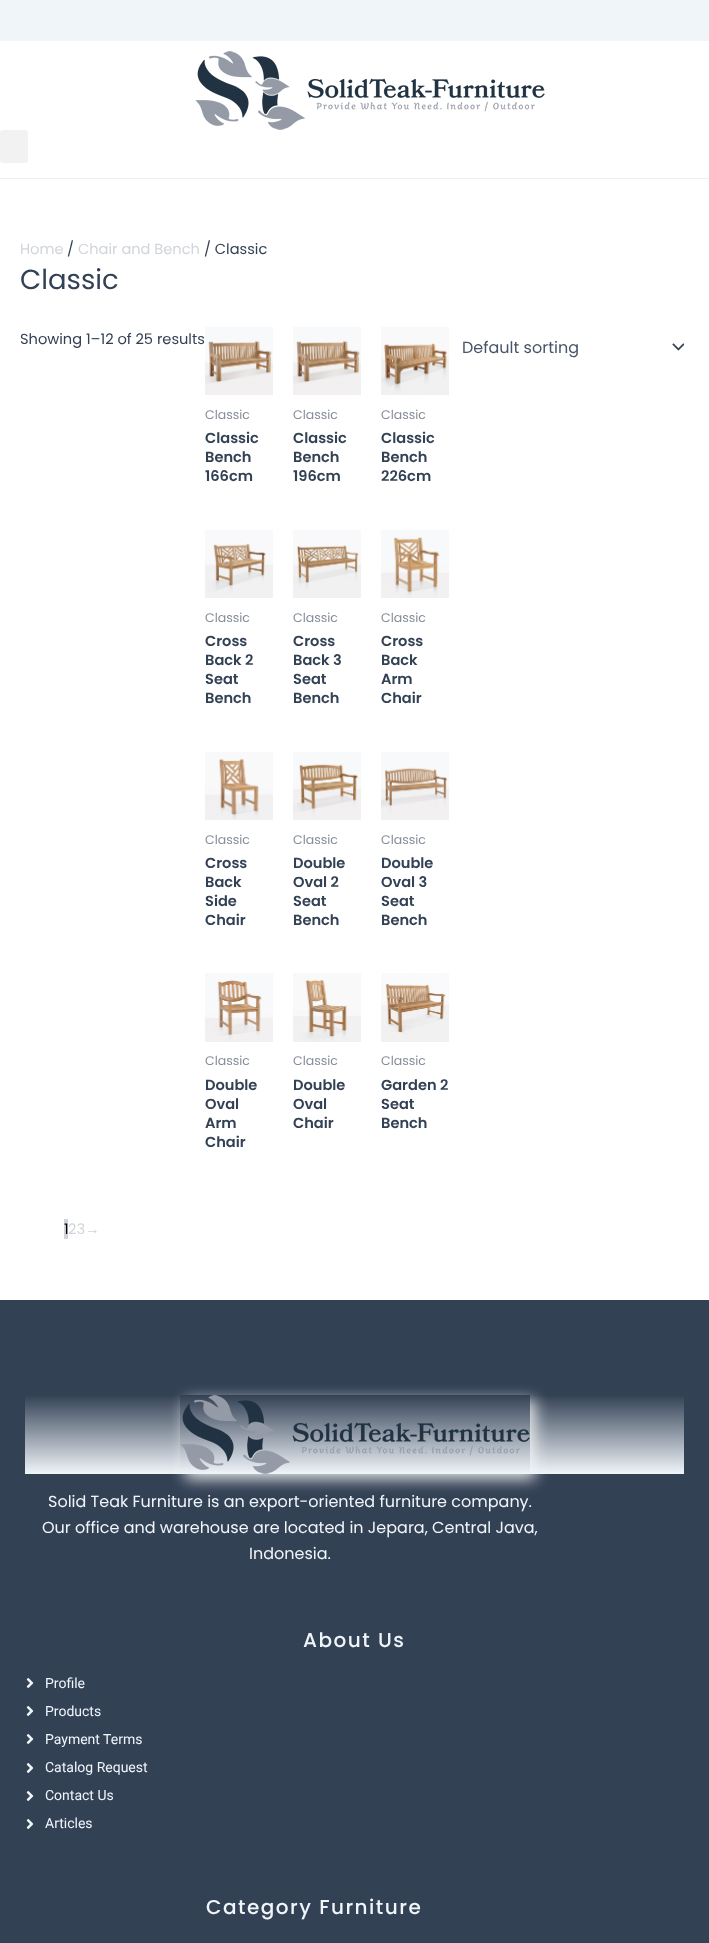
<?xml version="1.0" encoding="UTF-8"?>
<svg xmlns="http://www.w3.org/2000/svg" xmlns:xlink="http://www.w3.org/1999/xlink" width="709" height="1943">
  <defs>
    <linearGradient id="g1" gradientUnits="userSpaceOnUse" x1="355" y1="1395" x2="355" y2="1474"><stop offset="0" stop-color="#334155" /><stop offset="1" stop-color="#f0f5fa" /></linearGradient>
    <clipPath id="clip1"><path d="M 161 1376 h 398 v 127 h -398 z m 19 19 h 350 v 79 h -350 z" clip-rule="evenodd" /></clipPath>
  </defs>
  <rect width="100%" height="100%" fill="#ffffff" />
  <rect width="709" height="41" fill="#f0f5fa" />
  <image x="195" y="51" width="350" height="79" xlink:href="image1.png" />
  <rect y="130" width="28" height="33" rx="3" fill="#f2f2f2" />
  <rect y="178" width="709" height="1" fill="#f0efef" />
  <image x="672" y="343" width="12" height="8" xlink:href="image2.png" />
  <image x="205" y="327" width="68" height="68" xlink:href="image3.png" />
  <image x="293" y="327" width="68" height="68" xlink:href="image4.png" />
  <image x="381" y="327" width="68" height="68" xlink:href="image5.png" />
  <image x="205" y="530" width="68" height="68" xlink:href="image6.png" />
  <image x="293" y="530" width="68" height="68" xlink:href="image7.png" />
  <image x="381" y="530" width="68" height="68" xlink:href="image8.png" />
  <image x="205" y="752" width="68" height="68" xlink:href="image9.png" />
  <image x="293" y="752" width="68" height="68" xlink:href="image10.png" />
  <image x="381" y="752" width="68" height="68" xlink:href="image11.png" />
  <image x="205" y="973" width="68" height="69" xlink:href="image12.png" />
  <image x="293" y="973" width="68" height="69" xlink:href="image13.png" />
  <image x="381" y="973" width="68" height="69" xlink:href="image14.png" />
  <rect x="64" y="1219" width="4" height="20" fill="#d1d5db" />
  <rect y="1300" width="709" height="643" fill="#334155" />
  <rect x="25" y="1396" width="659" height="78" fill="url(#g1)" />
  <g clip-path="url(#clip1)">
    <rect x="185" y="1400" width="350" height="79" fill="#f5f5f5" fill-opacity="0.91" filter="blur(7.5px)" />
  </g>
  <image x="180" y="1395" width="350" height="79" xlink:href="image15.png" />
  <image x="26" y="1678" width="8" height="10" xlink:href="image16.png" />
  <image x="26" y="1706" width="8" height="10" xlink:href="image16.png" />
  <image x="26" y="1734" width="8" height="10" xlink:href="image16.png" />
  <image x="26" y="1763" width="8" height="10" xlink:href="image16.png" />
  <image x="26" y="1791" width="8" height="10" xlink:href="image16.png" />
  <image x="26" y="1819" width="8" height="10" xlink:href="image16.png" />
  <text x="20" y="254" style="font-family: Poppins; font-size: 14.6px; fill: #d1d5db">Home</text>
  <text x="67" y="254" style="font-family: Poppins; font-size: 14.6px; fill: #334155">/</text>
  <text x="78" y="254" style="font-family: Poppins; font-size: 14.6px; fill: #d1d5db">Chair and Bench</text>
  <text x="204" y="254" style="font-family: Poppins; font-size: 14.6px; fill: #334155">/ Classic</text>
  <text x="20" y="289" style="font-family: Poppins; font-size: 27.5px; fill: #334155">Classic</text>
  <text x="20" y="344" style="font-family: Poppins; font-size: 14.6px; fill: #334155">Showing 1–12 of 25 results</text>
  <text x="462" y="353" style="font-family: Poppins; font-size: 16px; fill: #475569">Default sorting</text>
  <text x="205" y="419" style="font-family: Poppins; font-size: 12.5px; fill: #858d99">Classic</text>
  <text x="205" y="443" style="font-family: Poppins; font-size: 14.6px; font-weight: 600; fill: #334155">Classic</text>
  <text x="205" y="462" style="font-family: Poppins; font-size: 14.6px; font-weight: 600; fill: #334155">Bench</text>
  <text x="205" y="481" style="font-family: Poppins; font-size: 14.6px; font-weight: 600; fill: #334155">166cm</text>
  <text x="293" y="419" style="font-family: Poppins; font-size: 12.5px; fill: #858d99">Classic</text>
  <text x="293" y="443" style="font-family: Poppins; font-size: 14.6px; font-weight: 600; fill: #334155">Classic</text>
  <text x="293" y="462" style="font-family: Poppins; font-size: 14.6px; font-weight: 600; fill: #334155">Bench</text>
  <text x="293" y="481" style="font-family: Poppins; font-size: 14.6px; font-weight: 600; fill: #334155">196cm</text>
  <text x="381" y="419" style="font-family: Poppins; font-size: 12.5px; fill: #858d99">Classic</text>
  <text x="381" y="443" style="font-family: Poppins; font-size: 14.6px; font-weight: 600; fill: #334155">Classic</text>
  <text x="381" y="462" style="font-family: Poppins; font-size: 14.6px; font-weight: 600; fill: #334155">Bench</text>
  <text x="381" y="481" style="font-family: Poppins; font-size: 14.6px; font-weight: 600; fill: #334155">226cm</text>
  <text x="205" y="622" style="font-family: Poppins; font-size: 12.5px; fill: #858d99">Classic</text>
  <text x="205" y="646" style="font-family: Poppins; font-size: 14.6px; font-weight: 600; fill: #334155">Cross</text>
  <text x="205" y="665" style="font-family: Poppins; font-size: 14.6px; font-weight: 600; fill: #334155">Back 2</text>
  <text x="205" y="684" style="font-family: Poppins; font-size: 14.6px; font-weight: 600; fill: #334155">Seat</text>
  <text x="205" y="703" style="font-family: Poppins; font-size: 14.6px; font-weight: 600; fill: #334155">Bench</text>
  <text x="293" y="622" style="font-family: Poppins; font-size: 12.5px; fill: #858d99">Classic</text>
  <text x="293" y="646" style="font-family: Poppins; font-size: 14.6px; font-weight: 600; fill: #334155">Cross</text>
  <text x="293" y="665" style="font-family: Poppins; font-size: 14.6px; font-weight: 600; fill: #334155">Back 3</text>
  <text x="293" y="684" style="font-family: Poppins; font-size: 14.6px; font-weight: 600; fill: #334155">Seat</text>
  <text x="293" y="703" style="font-family: Poppins; font-size: 14.6px; font-weight: 600; fill: #334155">Bench</text>
  <text x="381" y="622" style="font-family: Poppins; font-size: 12.5px; fill: #858d99">Classic</text>
  <text x="381" y="646" style="font-family: Poppins; font-size: 14.6px; font-weight: 600; fill: #334155">Cross</text>
  <text x="381" y="665" style="font-family: Poppins; font-size: 14.6px; font-weight: 600; fill: #334155">Back</text>
  <text x="381" y="684" style="font-family: Poppins; font-size: 14.6px; font-weight: 600; fill: #334155">Arm</text>
  <text x="381" y="703" style="font-family: Poppins; font-size: 14.6px; font-weight: 600; fill: #334155">Chair</text>
  <text x="205" y="844" style="font-family: Poppins; font-size: 12.5px; fill: #858d99">Classic</text>
  <text x="205" y="868" style="font-family: Poppins; font-size: 14.6px; font-weight: 600; fill: #334155">Cross</text>
  <text x="205" y="887" style="font-family: Poppins; font-size: 14.6px; font-weight: 600; fill: #334155">Back</text>
  <text x="205" y="906" style="font-family: Poppins; font-size: 14.6px; font-weight: 600; fill: #334155">Side</text>
  <text x="205" y="925" style="font-family: Poppins; font-size: 14.6px; font-weight: 600; fill: #334155">Chair</text>
  <text x="293" y="844" style="font-family: Poppins; font-size: 12.5px; fill: #858d99">Classic</text>
  <text x="293" y="868" style="font-family: Poppins; font-size: 14.6px; font-weight: 600; fill: #334155">Double</text>
  <text x="293" y="887" style="font-family: Poppins; font-size: 14.6px; font-weight: 600; fill: #334155">Oval 2</text>
  <text x="293" y="906" style="font-family: Poppins; font-size: 14.6px; font-weight: 600; fill: #334155">Seat</text>
  <text x="293" y="925" style="font-family: Poppins; font-size: 14.6px; font-weight: 600; fill: #334155">Bench</text>
  <text x="381" y="844" style="font-family: Poppins; font-size: 12.5px; fill: #858d99">Classic</text>
  <text x="381" y="868" style="font-family: Poppins; font-size: 14.6px; font-weight: 600; fill: #334155">Double</text>
  <text x="381" y="887" style="font-family: Poppins; font-size: 14.6px; font-weight: 600; fill: #334155">Oval 3</text>
  <text x="381" y="906" style="font-family: Poppins; font-size: 14.6px; font-weight: 600; fill: #334155">Seat</text>
  <text x="381" y="925" style="font-family: Poppins; font-size: 14.6px; font-weight: 600; fill: #334155">Bench</text>
  <text x="205" y="1065" style="font-family: Poppins; font-size: 12.5px; fill: #858d99">Classic</text>
  <text x="205" y="1090" style="font-family: Poppins; font-size: 14.6px; font-weight: 600; fill: #334155">Double</text>
  <text x="205" y="1109" style="font-family: Poppins; font-size: 14.6px; font-weight: 600; fill: #334155">Oval</text>
  <text x="205" y="1128" style="font-family: Poppins; font-size: 14.6px; font-weight: 600; fill: #334155">Arm</text>
  <text x="205" y="1147" style="font-family: Poppins; font-size: 14.6px; font-weight: 600; fill: #334155">Chair</text>
  <text x="293" y="1065" style="font-family: Poppins; font-size: 12.5px; fill: #858d99">Classic</text>
  <text x="293" y="1090" style="font-family: Poppins; font-size: 14.6px; font-weight: 600; fill: #334155">Double</text>
  <text x="293" y="1109" style="font-family: Poppins; font-size: 14.6px; font-weight: 600; fill: #334155">Oval</text>
  <text x="293" y="1128" style="font-family: Poppins; font-size: 14.6px; font-weight: 600; fill: #334155">Chair</text>
  <text x="381" y="1065" style="font-family: Poppins; font-size: 12.5px; fill: #858d99">Classic</text>
  <text x="381" y="1090" style="font-family: Poppins; font-size: 14.6px; font-weight: 600; fill: #334155">Garden 2</text>
  <text x="381" y="1109" style="font-family: Poppins; font-size: 14.6px; font-weight: 600; fill: #334155">Seat</text>
  <text x="381" y="1128" style="font-family: Poppins; font-size: 14.6px; font-weight: 600; fill: #334155">Bench</text>
  <text x="64" y="1234" style="font-family: Poppins; font-size: 14.6px; fill: #000000">1</text>
  <text x="68" y="1234" style="font-family: Poppins; font-size: 14.6px; fill: #d1d5db">23</text>
  <text x="85" y="1234" style="font-family: Liberation Sans; font-size: 14.6px; fill: #d1d5db">→</text>
  <text x="48" y="1507" style="font-family: Poppins; font-size: 16px; fill: #f0f5fa">Solid Teak Furniture is an export-oriented furniture company.</text>
  <text x="42" y="1533" style="font-family: Poppins; font-size: 16px; fill: #f0f5fa">Our office and warehouse are located in Jepara, Central Java,</text>
  <text x="249" y="1559" style="font-family: Poppins; font-size: 16px; fill: #f0f5fa">Indonesia.</text>
  <text x="303" y="1647" style="font-family: Poppins; font-size: 20px; font-weight: 500; letter-spacing: 1.5px; fill: #f0f5fa">About Us</text>
  <text x="45" y="1688" style="font-family: Roboto; font-size: 14px; fill: #f0f5fa">Profile</text>
  <text x="45" y="1716" style="font-family: Roboto; font-size: 14px; fill: #f0f5fa">Products</text>
  <text x="45" y="1744" style="font-family: Roboto; font-size: 14px; fill: #f0f5fa">Payment Terms</text>
  <text x="45" y="1772" style="font-family: Roboto; font-size: 14px; fill: #f0f5fa">Catalog Request</text>
  <text x="45" y="1800" style="font-family: Roboto; font-size: 14px; fill: #f0f5fa">Contact Us</text>
  <text x="45" y="1828" style="font-family: Roboto; font-size: 14px; fill: #f0f5fa">Articles</text>
  <text x="206" y="1914" style="font-family: Poppins; font-size: 20px; font-weight: 500; letter-spacing: 1.5px; fill: #f0f5fa">Category Furniture</text>
</svg>
